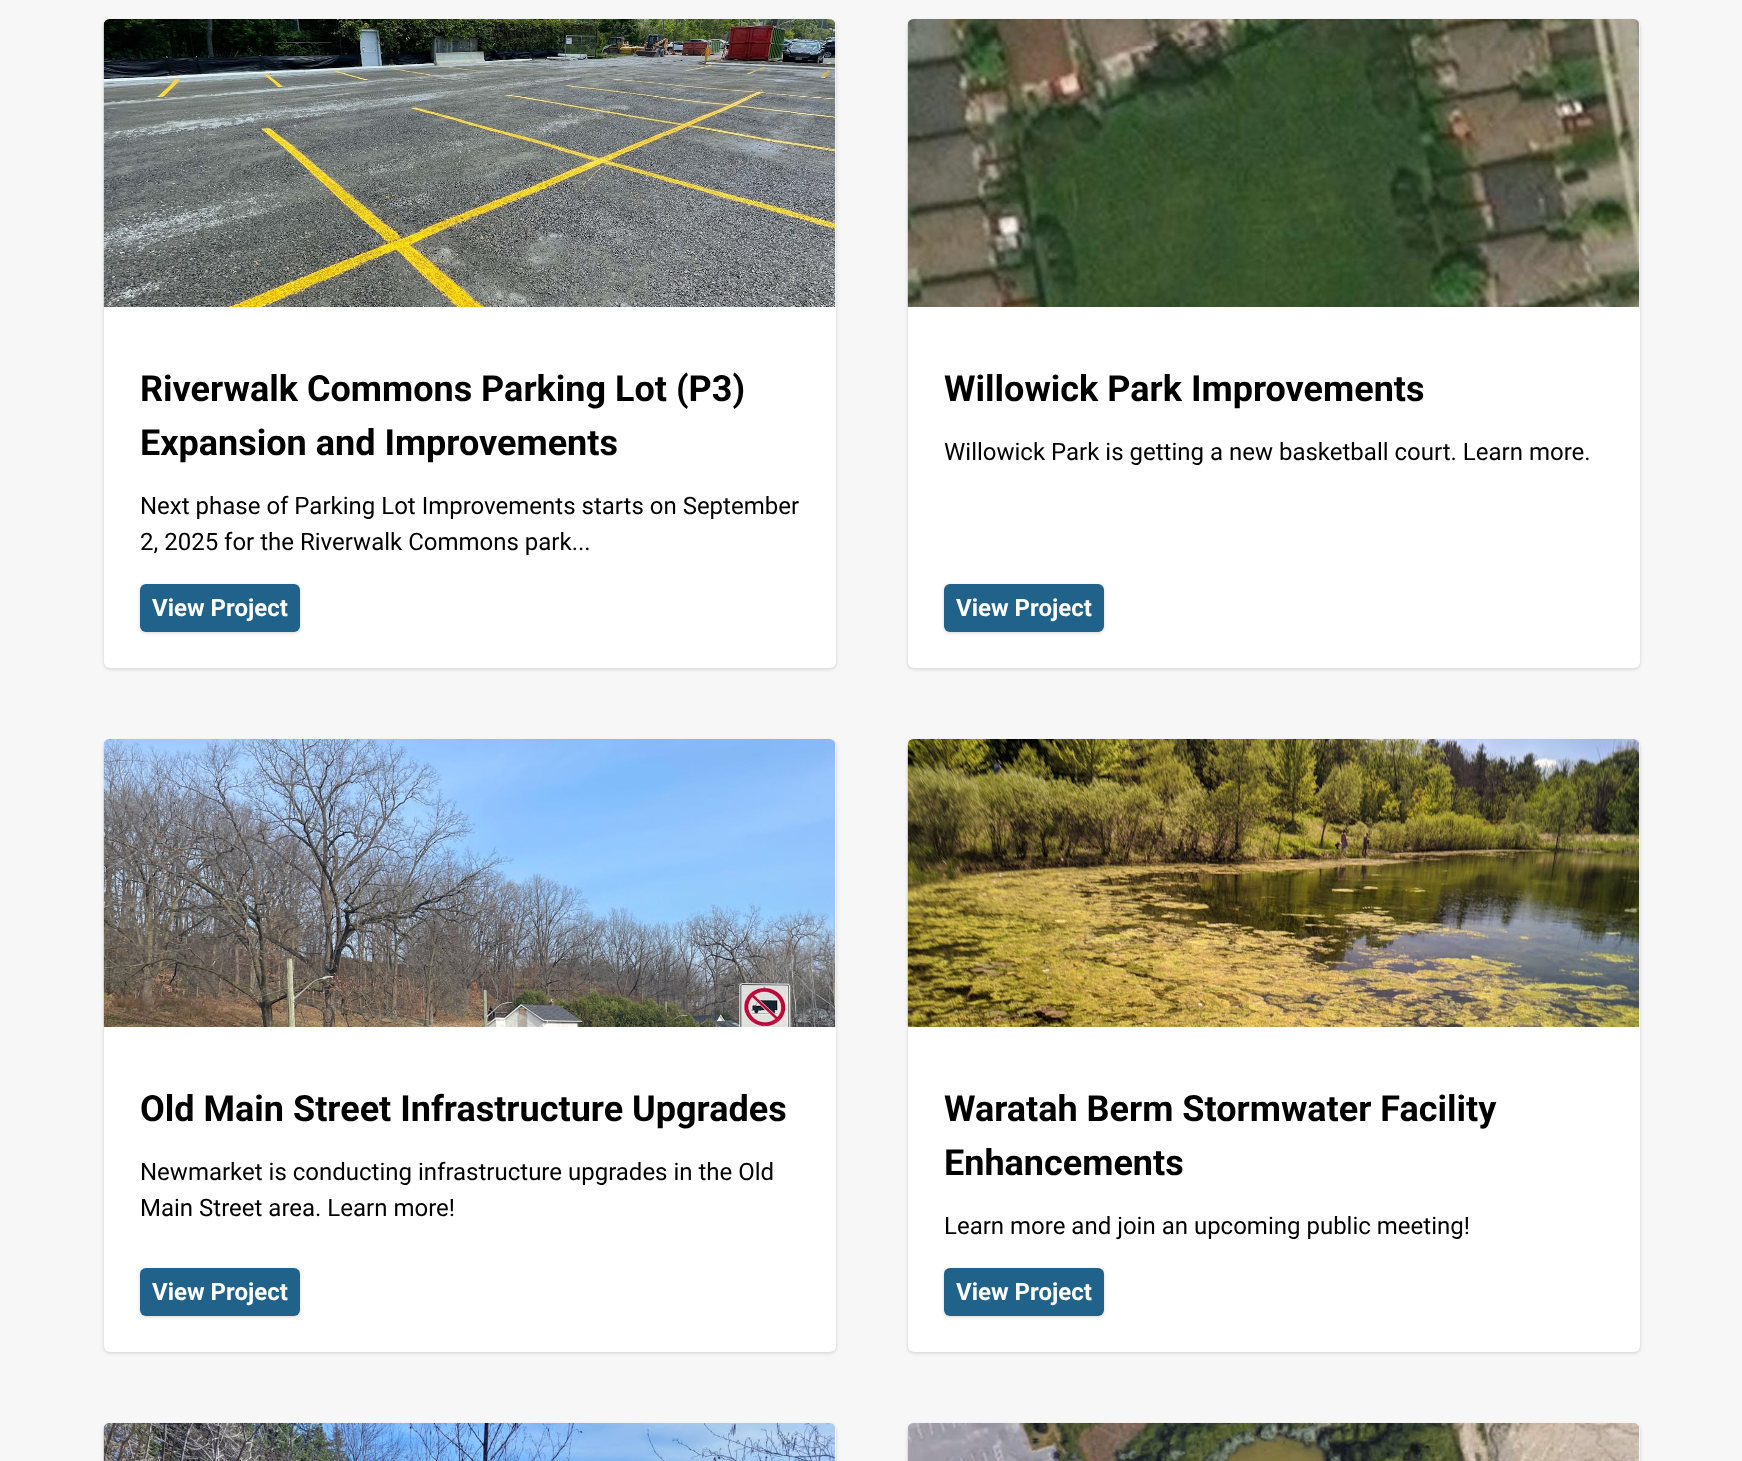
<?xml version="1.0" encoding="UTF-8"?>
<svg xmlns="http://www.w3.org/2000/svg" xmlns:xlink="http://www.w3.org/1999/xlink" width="1742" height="1461">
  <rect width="100%" height="100%" fill="#f7f7f7" />
  <rect x="104" y="21" width="732" height="648" rx="6" fill="#000000" fill-opacity="0.06" filter="blur(1.5px)" />
  <rect x="104" y="21" width="732" height="648" rx="6" fill="#000000" fill-opacity="0.1" filter="blur(2px)" />
  <rect x="104" y="20" width="732" height="648" rx="6" fill="#ffffff" />
  <image x="103" y="19" width="733" height="288" xlink:href="image1.png" />
  <rect x="140" y="585" width="160" height="48" rx="6" fill="#000000" fill-opacity="0.06" filter="blur(1.5px)" />
  <rect x="140" y="585" width="160" height="48" rx="6" fill="#000000" fill-opacity="0.1" filter="blur(2px)" />
  <rect x="140" y="584" width="160" height="48" rx="6" fill="#21628b" />
  <rect x="908" y="21" width="732" height="648" rx="6" fill="#000000" fill-opacity="0.06" filter="blur(1.5px)" />
  <rect x="908" y="21" width="732" height="648" rx="6" fill="#000000" fill-opacity="0.1" filter="blur(2px)" />
  <rect x="908" y="20" width="732" height="648" rx="6" fill="#ffffff" />
  <image x="907" y="19" width="733" height="288" xlink:href="image2.png" />
  <rect x="944" y="585" width="160" height="48" rx="6" fill="#000000" fill-opacity="0.06" filter="blur(1.5px)" />
  <rect x="944" y="585" width="160" height="48" rx="6" fill="#000000" fill-opacity="0.1" filter="blur(2px)" />
  <rect x="944" y="584" width="160" height="48" rx="6" fill="#21628b" />
  <rect x="104" y="741" width="732" height="612" rx="6" fill="#000000" fill-opacity="0.06" filter="blur(1.5px)" />
  <rect x="104" y="741" width="732" height="612" rx="6" fill="#000000" fill-opacity="0.1" filter="blur(2px)" />
  <rect x="104" y="740" width="732" height="612" rx="6" fill="#ffffff" />
  <image x="103" y="739" width="733" height="288" xlink:href="image3.png" />
  <rect x="140" y="1269" width="160" height="48" rx="6" fill="#000000" fill-opacity="0.06" filter="blur(1.5px)" />
  <rect x="140" y="1269" width="160" height="48" rx="6" fill="#000000" fill-opacity="0.1" filter="blur(2px)" />
  <rect x="140" y="1268" width="160" height="48" rx="6" fill="#21628b" />
  <rect x="908" y="741" width="732" height="612" rx="6" fill="#000000" fill-opacity="0.06" filter="blur(1.5px)" />
  <rect x="908" y="741" width="732" height="612" rx="6" fill="#000000" fill-opacity="0.1" filter="blur(2px)" />
  <rect x="908" y="740" width="732" height="612" rx="6" fill="#ffffff" />
  <image x="907" y="739" width="733" height="288" xlink:href="image4.png" />
  <rect x="944" y="1269" width="160" height="48" rx="6" fill="#000000" fill-opacity="0.06" filter="blur(1.5px)" />
  <rect x="944" y="1269" width="160" height="48" rx="6" fill="#000000" fill-opacity="0.1" filter="blur(2px)" />
  <rect x="944" y="1268" width="160" height="48" rx="6" fill="#21628b" />
  <rect x="104" y="1425" width="732" height="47" rx="6" fill="#000000" fill-opacity="0.06" filter="blur(1.5px)" />
  <rect x="104" y="1425" width="732" height="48" rx="6" fill="#000000" fill-opacity="0.1" filter="blur(2px)" />
  <rect x="104" y="1424" width="732" height="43" rx="6" fill="#ffffff" />
  <image x="103" y="1423" width="733" height="38" xlink:href="image5.png" />
  <rect x="908" y="1425" width="732" height="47" rx="6" fill="#000000" fill-opacity="0.06" filter="blur(1.5px)" />
  <rect x="908" y="1425" width="732" height="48" rx="6" fill="#000000" fill-opacity="0.1" filter="blur(2px)" />
  <rect x="908" y="1424" width="732" height="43" rx="6" fill="#ffffff" />
  <image x="907" y="1423" width="733" height="38" xlink:href="image6.png" />
  <text x="140" y="401" style="font-family: Roboto; font-size: 36px; font-weight: bold; fill: #000000">Riverwalk Commons Parking Lot (P3)</text>
  <text x="140" y="455" style="font-family: Roboto; font-size: 36px; font-weight: bold; fill: #000000">Expansion and Improvements</text>
  <text x="140" y="514" style="font-family: Roboto; font-size: 24px; fill: #000000">Next phase of Parking Lot Improvements starts on September</text>
  <text x="140" y="550" style="font-family: Roboto; font-size: 24px; fill: #000000">2, 2025 for the Riverwalk Commons park...</text>
  <text x="152" y="616" style="font-family: Roboto; font-size: 24px; font-weight: bold; fill: #ffffff">View Project</text>
  <text x="944" y="401" style="font-family: Roboto; font-size: 36px; font-weight: bold; fill: #000000">Willowick Park Improvements</text>
  <text x="944" y="460" style="font-family: Roboto; font-size: 24px; fill: #000000">Willowick Park is getting a new basketball court. Learn more.</text>
  <text x="956" y="616" style="font-family: Roboto; font-size: 24px; font-weight: bold; fill: #ffffff">View Project</text>
  <text x="140" y="1121" style="font-family: Roboto; font-size: 36px; font-weight: bold; fill: #000000">Old Main Street Infrastructure Upgrades</text>
  <text x="140" y="1180" style="font-family: Roboto; font-size: 24px; fill: #000000">Newmarket is conducting infrastructure upgrades in the Old</text>
  <text x="140" y="1216" style="font-family: Roboto; font-size: 24px; fill: #000000">Main Street area. Learn more!</text>
  <text x="152" y="1300" style="font-family: Roboto; font-size: 24px; font-weight: bold; fill: #ffffff">View Project</text>
  <text x="944" y="1121" style="font-family: Roboto; font-size: 36px; font-weight: bold; fill: #000000">Waratah Berm Stormwater Facility</text>
  <text x="944" y="1175" style="font-family: Roboto; font-size: 36px; font-weight: bold; fill: #000000">Enhancements</text>
  <text x="944" y="1234" style="font-family: Roboto; font-size: 24px; fill: #000000">Learn more and join an upcoming public meeting!</text>
  <text x="956" y="1300" style="font-family: Roboto; font-size: 24px; font-weight: bold; fill: #ffffff">View Project</text>
</svg>
